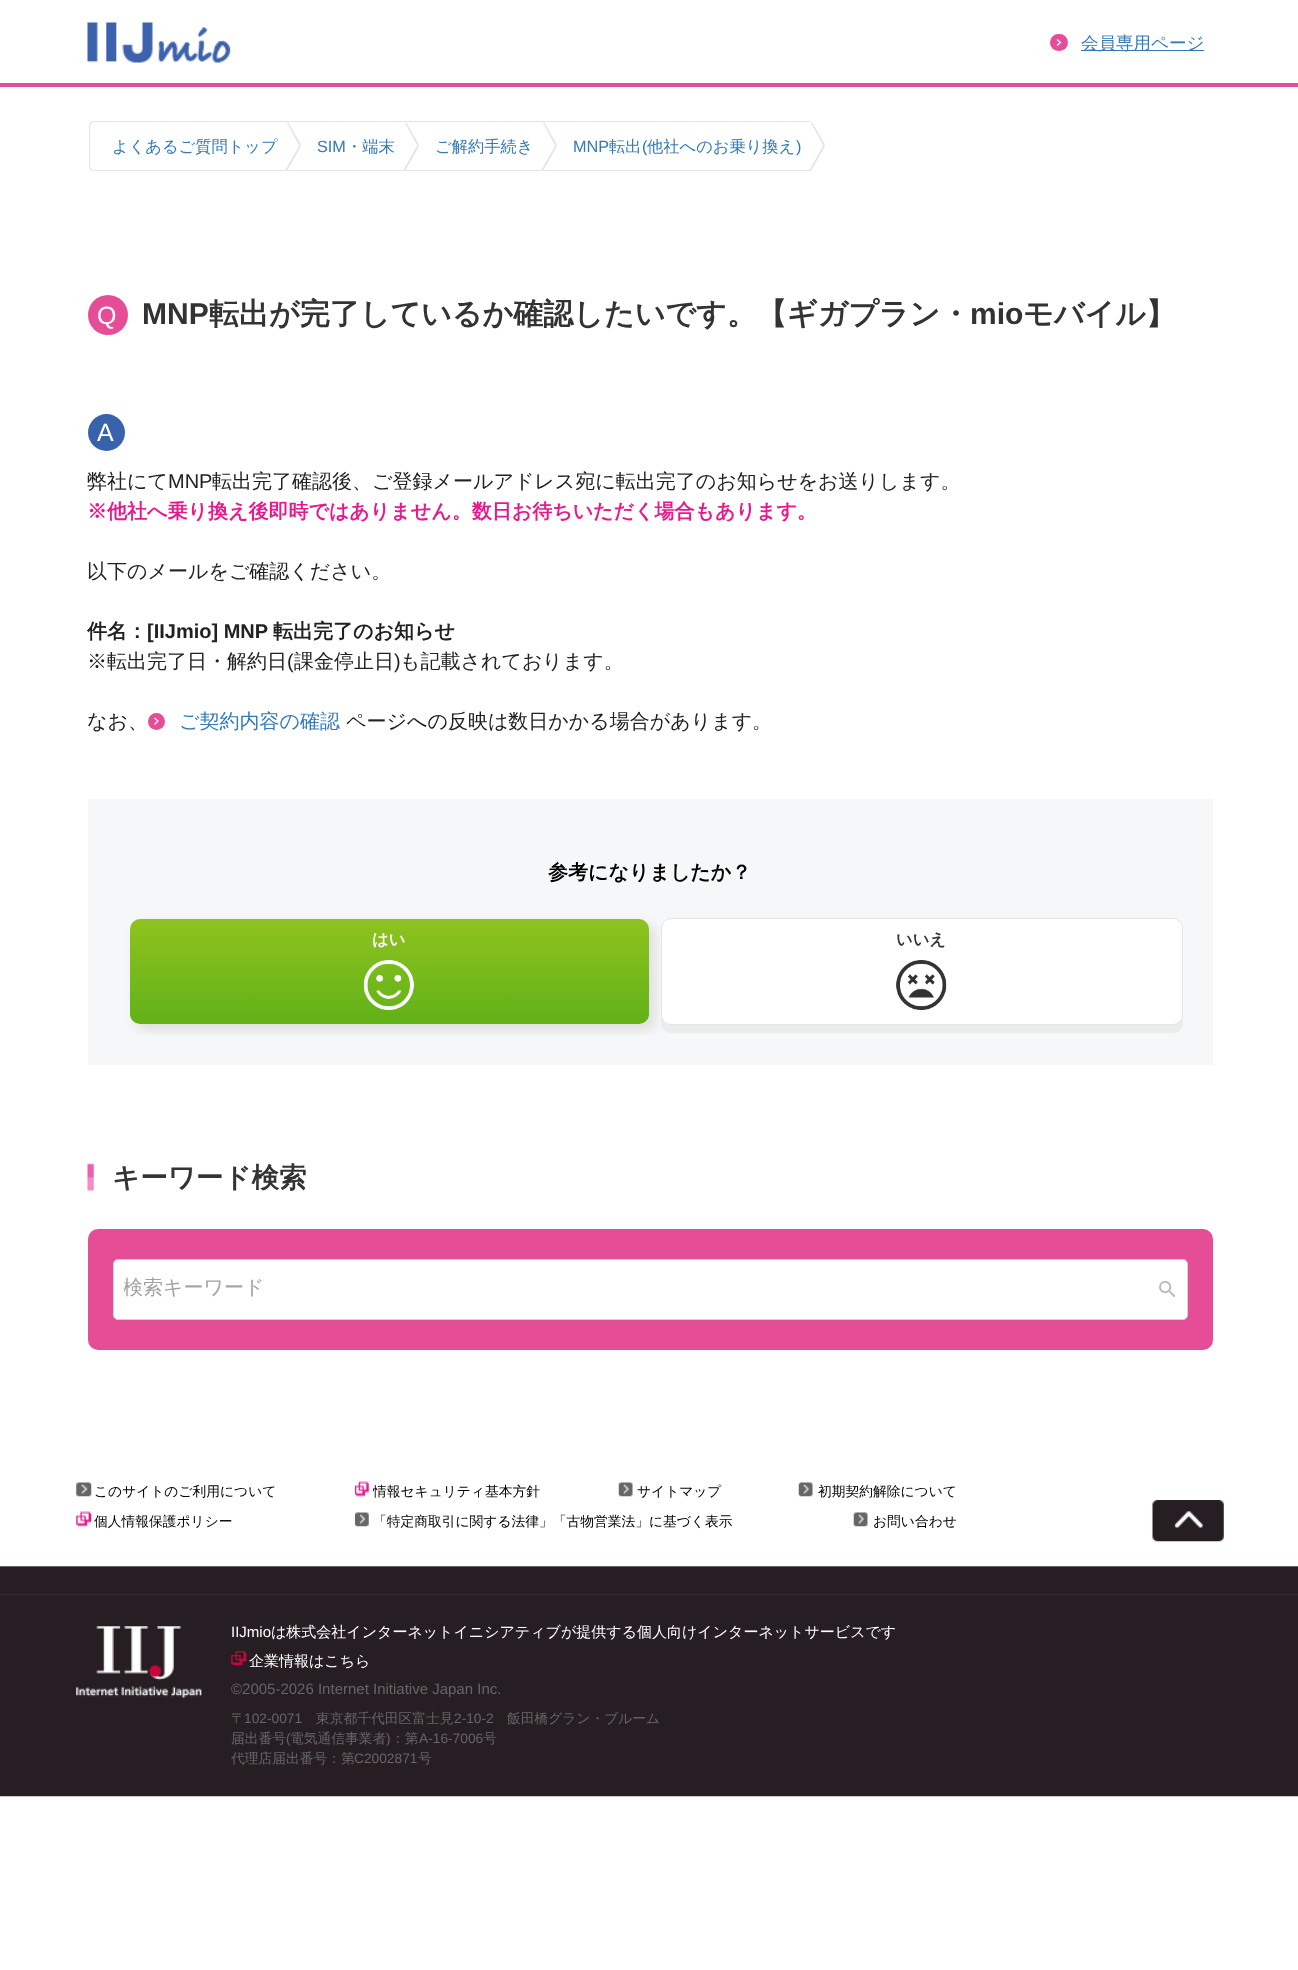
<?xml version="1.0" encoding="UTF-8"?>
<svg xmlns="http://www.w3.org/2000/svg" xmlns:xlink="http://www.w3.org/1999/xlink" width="1298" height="1970">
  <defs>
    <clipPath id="clip1"><rect x="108" y="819" width="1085" height="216" rx="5" /></clipPath>
    <linearGradient id="g1" gradientUnits="userSpaceOnUse" x1="389" y1="919" x2="389" y2="1024"><stop offset="0" stop-color="#8fc31f" /><stop offset="1" stop-color="#61b118" /></linearGradient>
    <clipPath id="clip2"><rect x="124" y="1276" width="1025" height="27" /></clipPath>
  </defs>
  <rect width="100%" height="100%" fill="#ffffff" />
  <rect y="83" width="1298" height="4" fill="#e64d97" />
  <image x="87" y="22" width="144" height="41" xlink:href="image1.png" />
  <rect x="1050" y="34" width="18" height="17" rx="8.5" fill="#e64d97" />
  <path d="M 1057 39.5 l 3.5 3 l -3.5 3" fill="none" stroke="#ffffff" stroke-width="1.2" />
  <rect x="1081" y="50" width="123" height="1" fill="#337ab7" />
  <path d="M 94 121 c -3 0 -5 2 -5 5 v 40 c 0 3 2 5 5 5 h 194 v -1 h -194 c -2 0 -4 -2 -4 -4 v -40 c 0 -2 2 -4 4 -4 h 194 v -1 z" fill="#e5e5e5" />
  <rect x="288" y="170" width="523" height="1" fill="#e5e5e5" />
  <path d="M 288 122 l 12 21 c 1 1 1 4 0 5 l -13 23 c -7 -13 -7 -35 0 -48 z" fill="#ffffff" />
  <path d="M 288 122 l 12 21 c 1 1 1 4 0 5 l -13 23 c -7 -13 -7 -35 0 -48 z m -1 1 l 12 22 v 1 l -13 23 l 1 2 c -7 -13 -7 -35 0 -48 z" fill="#e5e5e5" fill-rule="evenodd" />
  <rect x="288" y="121" width="523" height="1" fill="#e5e5e5" />
  <path d="M 406 122 l 12 21 c 1 1 1 4 0 5 l -13 23 c -8 -13 -8 -35 0 -48 z" fill="#ffffff" />
  <path d="M 406 122 l 12 21 c 1 1 1 4 0 5 l -13 23 c -8 -13 -8 -35 0 -48 z m -1 1 l 12 22 v 1 l -13 23 l 1 2 c -8 -13 -8 -35 0 -48 z" fill="#e5e5e5" fill-rule="evenodd" />
  <path d="M 544 122 l 12 21 c 1 1 1 4 0 5 l -13 23 c -8 -13 -8 -35 0 -48 z" fill="#ffffff" />
  <path d="M 544 122 l 12 21 c 1 1 1 4 0 5 l -13 23 c -8 -13 -8 -35 0 -48 z m -1 1 l 12 22 v 1 l -13 23 l 1 2 c -8 -13 -8 -35 0 -48 z" fill="#e5e5e5" fill-rule="evenodd" />
  <path d="M 812 122 l 12 21 c 1 1 1 4 0 5 l -13 23 c -8 -13 -8 -35 0 -48 z" fill="#ffffff" />
  <path d="M 812 122 l 12 21 c 1 1 1 4 0 5 l -13 23 c -8 -13 -8 -35 0 -48 z m -1 1 l 12 22 v 1 l -13 23 l 1 2 c -8 -13 -8 -35 0 -48 z" fill="#e5e5e5" fill-rule="evenodd" />
  <circle cx="108" cy="315" r="20" fill="#e64d97" />
  <circle cx="106.5" cy="432.5" r="18.5" fill="#3962ad" />
  <circle cx="156.5" cy="721.5" r="8.5" fill="#e64d97" />
  <path d="M 154.5 718 l 3.5 3 l -3.5 3.5" fill="none" stroke="#ffffff" stroke-width="1.2" />
  <rect x="88" y="799" width="1125" height="266" fill="#f6f7f8" />
  <g clip-path="url(#clip1)">
    <rect x="136" y="925" width="519" height="105" rx="10" fill="#dedede" filter="blur(6px)" />
  </g>
  <rect x="130" y="919" width="519" height="105" rx="10" fill="url(#g1)" />
  <image x="363" y="960" width="51" height="50" xlink:href="image2.png" />
  <path d="M 661 933 v 90 c 0 6 4 10 10 10 h 502 c 6 0 10 -4 10 -10 v -88 l -1 -3 v 83 c 0 6 -4 10 -10 10 h -501 c -5 0 -10 -4 -10 -10 z" fill="#e5e5e5" fill-opacity="0.6" />
  <rect x="661.5" y="918.5" width="521" height="106" rx="9.5" fill="#ffffff" stroke="#e5e5e5" />
  <image x="896" y="960" width="51" height="50" xlink:href="image3.png" />
  <rect x="88" y="1229" width="1125" height="121" rx="10" fill="#e64d97" />
  <image x="87" y="1163" width="7" height="29" xlink:href="image4.png" />
  <rect x="113.5" y="1259.5" width="1074" height="60" rx="4.5" fill="#ffffff" stroke="#ccd5df" />
  <image x="1159" y="1281" width="17" height="17" xlink:href="image5.png" />
  <image x="0" y="1566" width="1298" height="231" xlink:href="image6.png" />
  <image x="76" y="1482" width="16" height="15" xlink:href="image7.png" />
  <image x="355" y="1481" width="14" height="16" xlink:href="image8.png" />
  <image x="618" y="1482" width="15" height="15" xlink:href="image9.png" />
  <image x="798" y="1482" width="15" height="15" xlink:href="image9.png" />
  <image x="76" y="1511" width="16" height="16" xlink:href="image10.png" />
  <image x="355" y="1512" width="14" height="15" xlink:href="image11.png" />
  <image x="853" y="1512" width="15" height="15" xlink:href="image12.png" />
  <image x="1152" y="1500" width="72" height="42" xlink:href="image13.png" />
  <image x="76" y="1626" width="126" height="72" xlink:href="image14.png" />
  <image x="231" y="1651" width="16" height="14" xlink:href="image15.png" />
  <text x="1081" y="49" style="font-family: WenQuanYi Zen Hei; font-size: 17.5px; font-weight: 500; fill: #337ab7">会員専用ページ</text>
  <text x="112" y="152" style="font-family: WenQuanYi Zen Hei; font-size: 16.25px; font-weight: 500; fill: #337ab7">よくあるご質問トップ</text>
  <text x="317" y="152" style="font-family: Liberation Sans; font-size: 16.25px; fill: #337ab7">SIM</text>
  <text x="346" y="152" style="font-family: WenQuanYi Zen Hei; font-size: 16.25px; font-weight: 500; fill: #337ab7">・端末</text>
  <text x="435" y="152" style="font-family: WenQuanYi Zen Hei; font-size: 16.25px; font-weight: 500; fill: #337ab7">ご解約手続き</text>
  <text x="573" y="152" style="font-family: Liberation Sans; font-size: 16.25px; fill: #337ab7">MNP</text>
  <text x="609" y="152" style="font-family: WenQuanYi Zen Hei; font-size: 16.25px; font-weight: 500; fill: #337ab7">転出</text>
  <text x="642" y="152" style="font-family: Liberation Sans; font-size: 16.25px; fill: #337ab7">(</text>
  <text x="647" y="152" style="font-family: WenQuanYi Zen Hei; font-size: 16.25px; font-weight: 500; fill: #337ab7">他社へのお乗り換え</text>
  <text x="796" y="152" style="font-family: Liberation Sans; font-size: 16.25px; fill: #337ab7">)</text>
  <text x="97" y="324" style="font-family: Liberation Sans; font-size: 25px; fill: #ffffff">Q</text>
  <text x="142" y="324" style="font-family: Liberation Sans; font-size: 30px; font-weight: bold; fill: #333333">MNP</text>
  <text x="209" y="324" style="font-family: WenQuanYi Zen Hei; font-size: 30px; font-weight: bold; fill: #333333">転出が完了しているか確認したいです。【ギガプラン・</text>
  <text x="970" y="324" style="font-family: Liberation Sans; font-size: 30px; font-weight: bold; fill: #333333">mio</text>
  <text x="1023" y="324" style="font-family: WenQuanYi Zen Hei; font-size: 30px; font-weight: bold; fill: #333333">モバイル】</text>
  <text x="97" y="441" style="font-family: Liberation Sans; font-size: 25px; fill: #ffffff">A</text>
  <text x="87" y="488" style="font-family: WenQuanYi Zen Hei; font-size: 20px; font-weight: 500; fill: #212121">弊社にて</text>
  <text x="168" y="488" style="font-family: Liberation Sans; font-size: 20px; fill: #212121">MNP</text>
  <text x="212" y="488" style="font-family: WenQuanYi Zen Hei; font-size: 20px; font-weight: 500; fill: #212121">転出完了確認後、ご登録メールアドレス宛に転出完了のお知らせをお送りします。</text>
  <text x="87" y="518" style="font-family: WenQuanYi Zen Hei; font-size: 20px; font-weight: bold; fill: #e7198c">※他社へ乗り換え後即時ではありません。数日お待ちいただく場合もあります。</text>
  <text x="87" y="578" style="font-family: WenQuanYi Zen Hei; font-size: 20px; font-weight: 500; fill: #212121">以下のメールをご確認ください。</text>
  <text x="87" y="638" style="font-family: WenQuanYi Zen Hei; font-size: 20px; font-weight: bold; fill: #212121">件名：</text>
  <text x="147" y="638" style="font-family: Liberation Sans; font-size: 20px; font-weight: bold; fill: #212121">[IIJmio] MNP</text>
  <text x="273" y="638" style="font-family: WenQuanYi Zen Hei; font-size: 20px; font-weight: bold; fill: #212121">転出完了のお知らせ</text>
  <text x="87" y="668" style="font-family: WenQuanYi Zen Hei; font-size: 20px; font-weight: 500; fill: #212121">※転出完了日・解約日</text>
  <text x="287" y="668" style="font-family: Liberation Sans; font-size: 20px; fill: #212121">(</text>
  <text x="294" y="668" style="font-family: WenQuanYi Zen Hei; font-size: 20px; font-weight: 500; fill: #212121">課金停止日</text>
  <text x="394" y="668" style="font-family: Liberation Sans; font-size: 20px; fill: #212121">)</text>
  <text x="400" y="668" style="font-family: WenQuanYi Zen Hei; font-size: 20px; font-weight: 500; fill: #212121">も記載されております。</text>
  <text x="87" y="728" style="font-family: WenQuanYi Zen Hei; font-size: 20px; font-weight: 500; fill: #212121">なお、</text>
  <text x="179" y="728" style="font-family: WenQuanYi Zen Hei; font-size: 20px; font-weight: 500; fill: #337ab7">ご契約内容の確認</text>
  <text x="346" y="728" style="font-family: WenQuanYi Zen Hei; font-size: 20px; font-weight: 500; fill: #212121">ページへの反映は数日かかる場合があります。</text>
  <text x="548" y="879" style="font-family: WenQuanYi Zen Hei; font-size: 20px; font-weight: bold; fill: #000000">参考になりましたか？</text>
  <text x="372" y="945" style="font-family: WenQuanYi Zen Hei; font-size: 16.25px; font-weight: bold; fill: #ffffff">はい</text>
  <text x="896" y="945" style="font-family: WenQuanYi Zen Hei; font-size: 16.25px; font-weight: bold; fill: #333333">いいえ</text>
  <text x="112" y="1187" style="font-family: WenQuanYi Zen Hei; font-size: 27.5px; font-weight: bold; fill: #333333">キーワード検索</text>
  <g clip-path="url(#clip2)">
    <text x="123" y="1294" style="font-family: WenQuanYi Zen Hei; font-size: 20px; font-weight: 500; fill: #a2a2a2">検索キーワード</text>
  </g>
  <text x="94" y="1496" style="font-family: WenQuanYi Zen Hei; font-size: 13.75px; font-weight: 500; fill: #000000">このサイトのご利用について</text>
  <text x="373" y="1496" style="font-family: WenQuanYi Zen Hei; font-size: 13.75px; font-weight: 500; fill: #000000">情報セキュリティ基本方針</text>
  <text x="637" y="1496" style="font-family: WenQuanYi Zen Hei; font-size: 13.75px; font-weight: 500; fill: #000000">サイトマップ</text>
  <text x="818" y="1496" style="font-family: WenQuanYi Zen Hei; font-size: 13.75px; font-weight: 500; fill: #000000">初期契約解除について</text>
  <text x="94" y="1526" style="font-family: WenQuanYi Zen Hei; font-size: 13.75px; font-weight: 500; fill: #000000">個人情報保護ポリシー</text>
  <text x="373" y="1526" style="font-family: WenQuanYi Zen Hei; font-size: 13.75px; font-weight: 500; fill: #000000">「特定商取引に関する法律」「古物営業法」に基づく表示</text>
  <text x="873" y="1526" style="font-family: WenQuanYi Zen Hei; font-size: 13.75px; font-weight: 500; fill: #000000">お問い合わせ</text>
  <text x="231" y="1637" style="font-family: Liberation Sans; font-size: 15px; fill: #ffffff">IIJmio</text>
  <text x="271" y="1637" style="font-family: WenQuanYi Zen Hei; font-size: 15px; font-weight: 500; fill: #ffffff">は株式会社インターネットイニシアティブが提供する個人向けインターネットサービスです</text>
  <text x="249" y="1666" style="font-family: WenQuanYi Zen Hei; font-size: 15px; font-weight: 500; fill: #ffffff">企業情報はこちら</text>
  <text x="231" y="1694" style="font-family: Liberation Sans; font-size: 15px; fill: #666666">©2005-2026 Internet Initiative Japan Inc.</text>
  <text x="231" y="1723" style="font-family: WenQuanYi Zen Hei; font-size: 13.75px; font-weight: 500; fill: #666666">〒</text>
  <text x="244" y="1723" style="font-family: Liberation Sans; font-size: 13.75px; fill: #666666">102-0071</text>
  <text x="316" y="1723" style="font-family: WenQuanYi Zen Hei; font-size: 13.75px; font-weight: 500; fill: #666666">東京都千代田区富士見</text>
  <text x="454" y="1723" style="font-family: Liberation Sans; font-size: 13.75px; fill: #666666">2-10-2</text>
  <text x="507" y="1723" style="font-family: WenQuanYi Zen Hei; font-size: 13.75px; font-weight: 500; fill: #666666">飯田橋グラン・ブルーム</text>
  <text x="231" y="1743" style="font-family: WenQuanYi Zen Hei; font-size: 13.75px; font-weight: 500; fill: #666666">届出番号</text>
  <text x="286" y="1743" style="font-family: Liberation Sans; font-size: 13.75px; fill: #666666">(</text>
  <text x="290" y="1743" style="font-family: WenQuanYi Zen Hei; font-size: 13.75px; font-weight: 500; fill: #666666">電気通信事業者</text>
  <text x="386" y="1743" style="font-family: Liberation Sans; font-size: 13.75px; fill: #666666">)</text>
  <text x="391" y="1743" style="font-family: WenQuanYi Zen Hei; font-size: 13.75px; font-weight: 500; fill: #666666">：第</text>
  <text x="419" y="1743" style="font-family: Liberation Sans; font-size: 13.75px; fill: #666666">A-16-7006</text>
  <text x="483" y="1743" style="font-family: WenQuanYi Zen Hei; font-size: 13.75px; font-weight: 500; fill: #666666">号</text>
  <text x="231" y="1763" style="font-family: WenQuanYi Zen Hei; font-size: 13.75px; font-weight: 500; fill: #666666">代理店届出番号：第</text>
  <text x="354" y="1763" style="font-family: Liberation Sans; font-size: 13.75px; fill: #666666">C2002871</text>
  <text x="418" y="1763" style="font-family: WenQuanYi Zen Hei; font-size: 13.75px; font-weight: 500; fill: #666666">号</text>
</svg>
